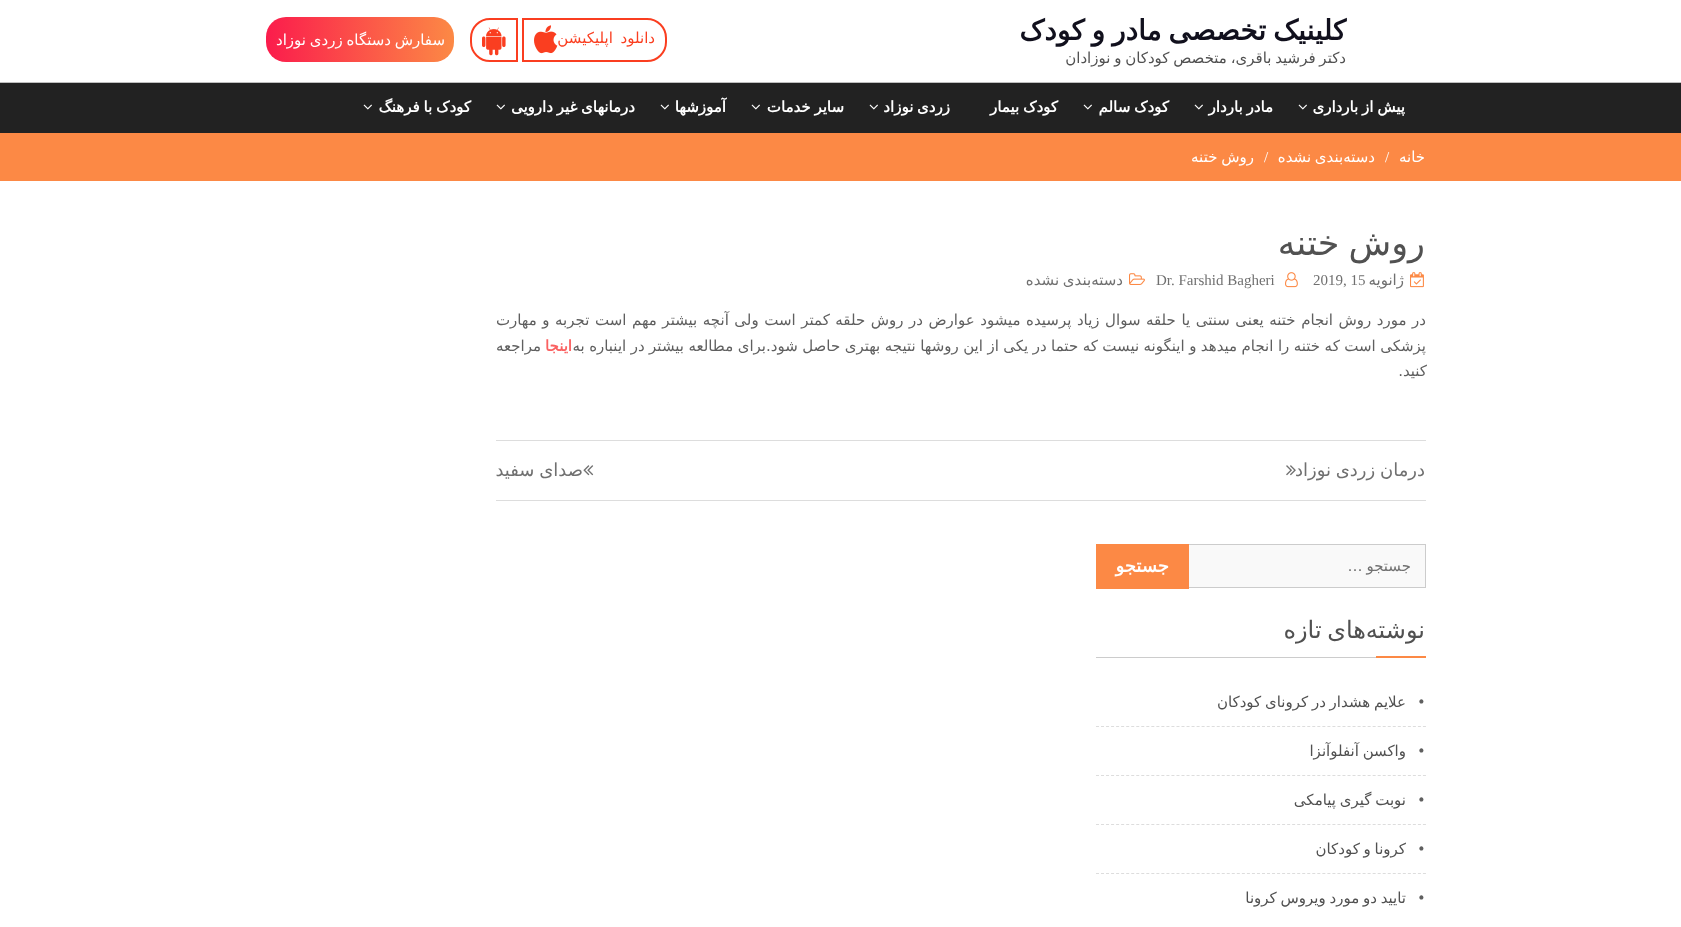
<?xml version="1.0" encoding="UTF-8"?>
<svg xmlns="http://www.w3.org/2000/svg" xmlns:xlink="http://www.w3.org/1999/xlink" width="1681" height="927">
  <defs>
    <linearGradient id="g1" gradientUnits="userSpaceOnUse" x1="266" y1="40" x2="454" y2="39"><stop offset="0" stop-color="#fb1c4c" /><stop offset="1" stop-color="#fc8945" /></linearGradient>
    <clipPath id="clip1"><rect x="496" y="441" width="930" height="59" /></clipPath>
  </defs>
  <rect width="100%" height="100%" fill="#ffffff" />
  <rect y="82" width="1681" height="1" fill="#bebebe" />
  <path d="M 523 19 h 124 c 10.5 0 19 8.5 19 19 v 4 c 0 10.5 -8.5 19 -19 19 h -124 z" fill="none" stroke="#fa3e20" stroke-width="2" />
  <image x="534" y="25" width="24" height="29" xlink:href="image1.png" />
  <path d="M 490 19 h 27 v 42 h -27 c -10.5 0 -19 -8.5 -19 -19 v -4 c 0 -10.5 8.5 -19 19 -19 z" fill="none" stroke="#fa3e20" stroke-width="2" />
  <image x="482" y="27" width="24" height="29" xlink:href="image2.png" />
  <rect x="266" y="17" width="188" height="45" rx="20" fill="url(#g1)" />
  <rect y="83" width="1681" height="50" fill="#222222" />
  <image x="1298" y="104" width="9" height="6" xlink:href="image3.png" />
  <image x="1194" y="104" width="9" height="6" xlink:href="image3.png" />
  <image x="1083" y="104" width="9" height="6" xlink:href="image3.png" />
  <image x="869" y="104" width="9" height="6" xlink:href="image3.png" />
  <image x="751" y="104" width="9" height="6" xlink:href="image3.png" />
  <image x="660" y="104" width="9" height="6" xlink:href="image3.png" />
  <image x="496" y="104" width="9" height="6" xlink:href="image3.png" />
  <image x="363" y="104" width="9" height="6" xlink:href="image3.png" />
  <rect y="133" width="1681" height="48" fill="#fc8945" />
  <image x="1410" y="272" width="14" height="16" xlink:href="image4.png" />
  <image x="1285" y="272" width="13" height="16" xlink:href="image5.png" />
  <image x="1129" y="273" width="16" height="12" xlink:href="image6.png" />
  <rect x="496" y="440" width="930" height="1" fill="#dddddd" />
  <rect x="496" y="500" width="930" height="1" fill="#dddddd" />
  <image x="1286" y="465" width="10" height="11" xlink:href="image7.png" />
  <image x="583" y="465" width="11" height="11" xlink:href="image8.png" />
  <rect x="1189" y="545" width="236" height="42" fill="#f9f9f9" />
  <rect x="1096.5" y="544.5" width="329" height="43" fill="none" stroke="#cccccc" />
  <rect x="1096" y="544" width="93" height="45" fill="#fc8945" />
  <rect x="1096" y="657" width="280" height="1" fill="#cccccc" />
  <rect x="1376" y="656" width="50" height="2" fill="#fc8945" />
  <path d="M 1096 726.5 h 330" fill="none" stroke="#dddddd" stroke-dasharray="3 2.03" />
  <path d="M 1096 775.5 h 330" fill="none" stroke="#dddddd" stroke-dasharray="3 2.03" />
  <path d="M 1096 824.5 h 330" fill="none" stroke="#dddddd" stroke-dasharray="3 2.03" />
  <path d="M 1096 873.5 h 330" fill="none" stroke="#dddddd" stroke-dasharray="3 2.03" />
  <text x="1346" y="40" word-spacing="-2" style="font-family: DejaVu Sans; font-size: 28px; font-weight: bold; direction: rtl; fill: #11101d">کلینیک تخصصی مادر و کودک</text>
  <text x="1346" y="63" word-spacing="-1" style="font-family: DejaVu Sans; font-size: 15px; direction: rtl; fill: #515151">دکتر فرشید باقری، متخصص کودکان و نوزادان</text>
  <text x="655" y="43" word-spacing="3" style="font-family: DejaVu Sans; font-size: 15px; direction: rtl; fill: #fa3e20">دانلود اپلیکیشن</text>
  <text x="445" y="45" word-spacing="-1" style="font-family: DejaVu Sans; font-size: 15px; direction: rtl; fill: #ffffff">سفارش دستگاه زردی نوزاد</text>
  <text x="1405" y="112" word-spacing="-1" style="font-family: DejaVu Sans; font-size: 15px; font-weight: bold; direction: rtl; fill: #ffffff">پیش از بارداری</text>
  <text x="1273" y="112" word-spacing="-1" style="font-family: DejaVu Sans; font-size: 15px; font-weight: bold; direction: rtl; fill: #ffffff">مادر باردار</text>
  <text x="1169" y="112" word-spacing="-1" style="font-family: DejaVu Sans; font-size: 15px; font-weight: bold; direction: rtl; fill: #ffffff">کودک سالم</text>
  <text x="1058" y="112" word-spacing="-1" style="font-family: DejaVu Sans; font-size: 15px; font-weight: bold; direction: rtl; fill: #ffffff">کودک بیمار</text>
  <text x="950" y="112" word-spacing="-1" style="font-family: DejaVu Sans; font-size: 15px; font-weight: bold; direction: rtl; fill: #ffffff">زردی نوزاد</text>
  <text x="844" y="112" word-spacing="-1" style="font-family: DejaVu Sans; font-size: 15px; font-weight: bold; direction: rtl; fill: #ffffff">سایر خدمات</text>
  <text x="726" y="112" style="font-family: DejaVu Sans; font-size: 15px; font-weight: bold; direction: rtl; fill: #ffffff">آموزشها</text>
  <text x="635" y="112" word-spacing="-1" style="font-family: DejaVu Sans; font-size: 15px; font-weight: bold; direction: rtl; fill: #ffffff">درمانهای غیر دارویی</text>
  <text x="471" y="112" word-spacing="-1" style="font-family: DejaVu Sans; font-size: 15px; font-weight: bold; direction: rtl; fill: #ffffff">کودک با فرهنگ</text>
  <text x="1425" y="162" style="font-family: DejaVu Sans; font-size: 15px; direction: rtl; fill: #ffffff">خانه</text>
  <text x="1385" y="162" style="font-family: Liberation Serif; font-size: 15px; fill: #ffffff">/</text>
  <text x="1375" y="162" word-spacing="-1" style="font-family: DejaVu Sans; font-size: 15px; direction: rtl; fill: #ffffff">دسته‌بندی نشده</text>
  <text x="1264" y="162" style="font-family: Liberation Serif; font-size: 15px; fill: #ffffff">/</text>
  <text x="1254" y="162" word-spacing="-1" style="font-family: DejaVu Sans; font-size: 15px; direction: rtl; fill: #ffffff">روش ختنه</text>
  <text x="1425" y="255" word-spacing="-2" style="font-family: DejaVu Sans; font-size: 35px; direction: rtl; fill: #515151">روش ختنه</text>
  <text x="1404" y="285" style="font-family: DejaVu Sans; font-size: 15px; direction: rtl; fill: #707070">ژانویه</text>
  <text x="1313" y="285" style="font-family: Liberation Serif; font-size: 15px; fill: #707070">2019, 15</text>
  <text x="1156" y="285" style="font-family: Liberation Serif; font-size: 15px; fill: #707070">Dr. Farshid Bagheri</text>
  <text x="1123" y="285" word-spacing="-1" style="font-family: DejaVu Sans; font-size: 15px; direction: rtl; fill: #707070">دسته‌بندی نشده</text>
  <text x="1426" y="325" word-spacing="0.75" style="font-family: DejaVu Sans; font-size: 15px; direction: rtl; fill: #5f5f5f">در مورد روش انجام ختنه یعنی سنتی یا حلقه سوال زیاد پرسیده میشود عوارض در روش حلقه کمتر است ولی آنچه بیشتر مهم است تجربه و مهارت</text>
  <text x="1426" y="351" word-spacing="-0.3" style="font-family: DejaVu Sans; font-size: 15px; direction: rtl; fill: #5f5f5f">پزشکی است که ختنه را انجام میدهد و اینگونه نیست که حتما در یکی از این روشها نتیجه بهتری حاصل شود.برای مطالعه بیشتر در اینباره به</text>
  <text x="572" y="351" style="font-family: DejaVu Sans; font-size: 15px; font-weight: bold; direction: rtl; fill: #fa6161">اینجا</text>
  <text x="541" y="351" style="font-family: DejaVu Sans; font-size: 15px; direction: rtl; fill: #5f5f5f">مراجعه</text>
  <text x="1427" y="376" style="font-family: DejaVu Sans; font-size: 15px; direction: rtl; fill: #5f5f5f">کنید.</text>
  <g clip-path="url(#clip1)">
    <text x="1425" y="476" word-spacing="-1" style="font-family: DejaVu Sans; font-size: 18px; direction: rtl; fill: #707070">درمان زردی نوزاد</text>
  </g>
  <text x="583" y="476" word-spacing="-1" style="font-family: DejaVu Sans; font-size: 18px; direction: rtl; fill: #707070">صدای سفید</text>
  <text x="1411" y="571" word-spacing="-1" style="font-family: DejaVu Sans; font-size: 15px; direction: rtl; fill: #707070">جستجو …</text>
  <text x="1169" y="572" style="font-family: DejaVu Sans; font-size: 18px; font-weight: bold; direction: rtl; fill: #ffffff">جستجو</text>
  <text x="1425" y="638" style="font-family: DejaVu Sans; font-size: 24px; direction: rtl; fill: #515151">نوشته</text>
  <text x="1366" y="638" word-spacing="-2" style="font-family: DejaVu Sans; font-size: 24px; direction: rtl; fill: #515151">های تازه</text>
  <text x="1417" y="703" style="font-family: Liberation Serif; font-size: 35px; fill: #5f5f5f">.</text>
  <text x="1406" y="707" word-spacing="-1" style="font-family: DejaVu Sans; font-size: 15px; direction: rtl; fill: #515151">علایم هشدار در کرونای کودکان</text>
  <text x="1417" y="752" style="font-family: Liberation Serif; font-size: 35px; fill: #5f5f5f">.</text>
  <text x="1406" y="756" word-spacing="-1" style="font-family: DejaVu Sans; font-size: 15px; direction: rtl; fill: #515151">واکسن آنفلوآنزا</text>
  <text x="1417" y="801" style="font-family: Liberation Serif; font-size: 35px; fill: #5f5f5f">.</text>
  <text x="1406" y="805" word-spacing="-1" style="font-family: DejaVu Sans; font-size: 15px; direction: rtl; fill: #515151">نوبت گیری پیامکی</text>
  <text x="1417" y="850" style="font-family: Liberation Serif; font-size: 35px; fill: #5f5f5f">.</text>
  <text x="1406" y="854" word-spacing="-1" style="font-family: DejaVu Sans; font-size: 15px; direction: rtl; fill: #515151">کرونا و کودکان</text>
  <text x="1417" y="899" style="font-family: Liberation Serif; font-size: 35px; fill: #5f5f5f">.</text>
  <text x="1406" y="903" word-spacing="-1" style="font-family: DejaVu Sans; font-size: 15px; direction: rtl; fill: #515151">تایید دو مورد ویروس کرونا</text>
</svg>
